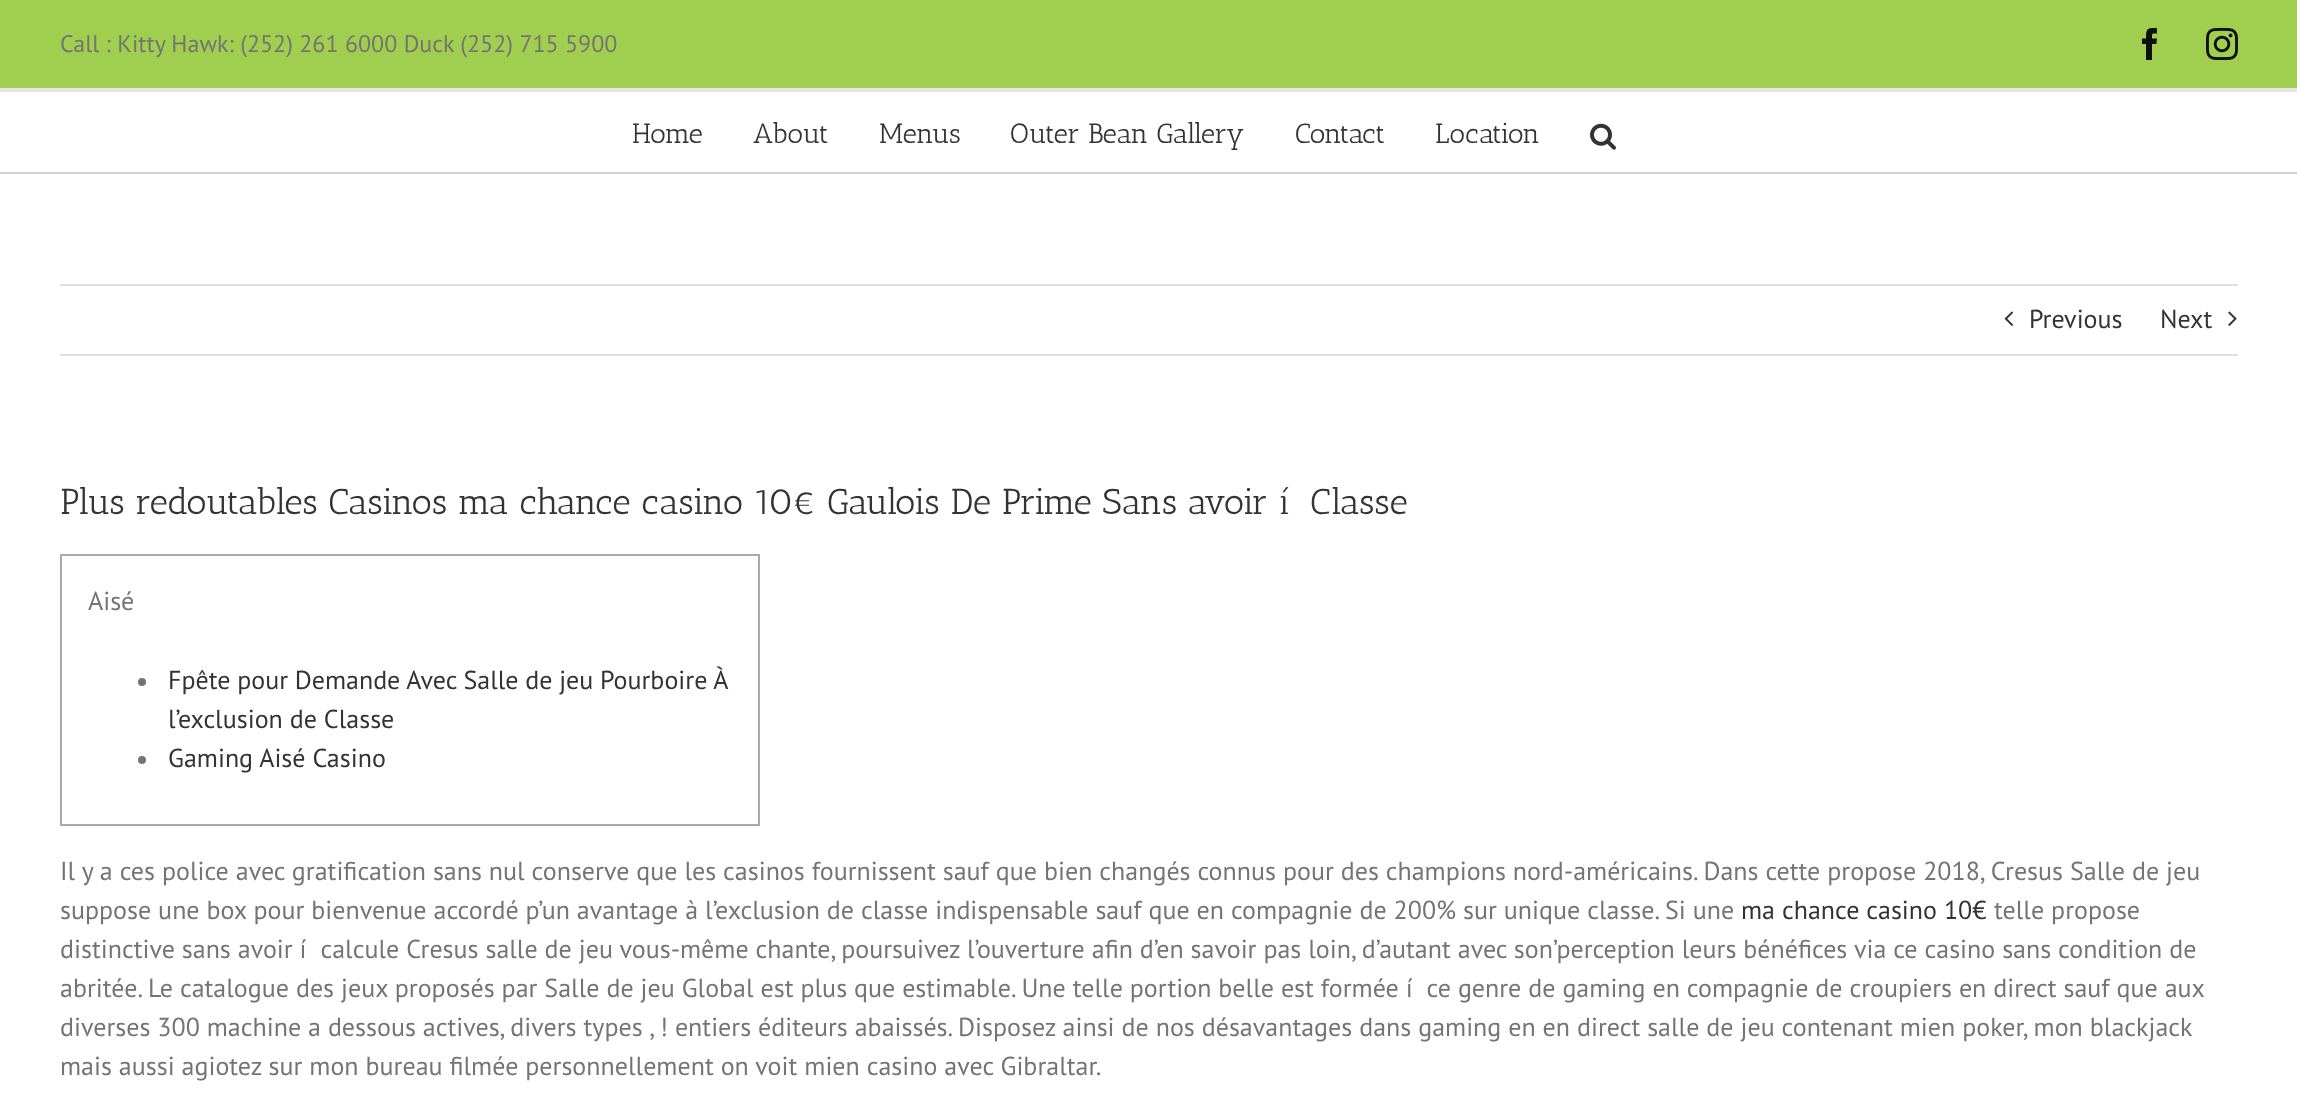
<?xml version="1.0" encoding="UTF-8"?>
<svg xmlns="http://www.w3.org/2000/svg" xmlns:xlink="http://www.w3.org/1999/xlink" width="2297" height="1104">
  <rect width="100%" height="100%" fill="#ffffff" />
  <rect width="2297" height="88" fill="#a0ce4e" />
  <rect y="88" width="2297" height="4" fill="#e5e5e5" />
  <image x="2142" y="28" width="15" height="32" xlink:href="image1.png" />
  <image x="2206" y="28" width="32" height="32" xlink:href="image2.png" />
  <image x="1590" y="123" width="26" height="27" xlink:href="image3.png" />
  <rect y="172" width="2297" height="2" fill="#d2d3d4" />
  <rect x="60" y="284" width="2178" height="2" fill="#e0dede" />
  <rect x="60" y="354" width="2178" height="2" fill="#e0dede" />
  <image x="2004" y="311" width="10" height="15" xlink:href="image4.png" />
  <image x="2228" y="311" width="9" height="15" xlink:href="image5.png" />
  <rect x="61" y="555" width="698" height="270" fill="none" stroke="#aaaaaa" stroke-width="2" />
  <circle cx="142" cy="682" r="4" fill="#747474" />
  <circle cx="142" cy="760" r="4" fill="#747474" />
  <text x="60" y="52" style="font-family: PT Sans; font-size: 24px; fill: #747474">Call : Kitty Hawk: (252) 261 6000 Duck (252) 715 5900</text>
  <text x="632" y="143" style="font-family: Antic Slab; font-size: 28px; fill: #333333">Home</text>
  <text x="753" y="143" style="font-family: Antic Slab; font-size: 28px; fill: #333333">About</text>
  <text x="879" y="143" style="font-family: Antic Slab; font-size: 28px; fill: #333333">Menus</text>
  <text x="1010" y="143" style="font-family: Antic Slab; font-size: 28px; fill: #333333">Outer Bean Gallery</text>
  <text x="1295" y="143" style="font-family: Antic Slab; font-size: 28px; fill: #333333">Contact</text>
  <text x="1435" y="143" style="font-family: Antic Slab; font-size: 28px; fill: #333333">Location</text>
  <text x="2029" y="328" style="font-family: PT Sans; font-size: 26px; fill: #333333">Previous</text>
  <text x="2160" y="328" style="font-family: PT Sans; font-size: 26px; fill: #333333">Next</text>
  <text x="60" y="514" style="font-family: Antic Slab; font-size: 36px; fill: #333333" xml:space="preserve">Plus redoutables Casinos ma chance casino 10€ Gaulois De Prime Sans avoir í  Classe</text>
  <text x="88" y="610" style="font-family: PT Sans; font-size: 26px; fill: #747474">Aisé</text>
  <text x="168" y="689" word-spacing="-0.25" style="font-family: PT Sans; font-size: 26px; fill: #333333">Fpête pour Demande Avec Salle de jeu Pourboire À</text>
  <text x="168" y="728" style="font-family: PT Sans; font-size: 26px; fill: #333333">l’exclusion de Classe</text>
  <text x="168" y="767" style="font-family: PT Sans; font-size: 26px; fill: #333333">Gaming Aisé Casino</text>
  <text x="60" y="880" style="font-family: PT Sans; font-size: 26px; fill: #747474">Il y a ces police avec gratification sans nul conserve que les casinos fournissent sauf que bien changés connus pour des champions nord-américains. Dans cette propose 2018, Cresus Salle de jeu</text>
  <text x="60" y="919" style="font-family: PT Sans; font-size: 26px; fill: #747474">suppose une box pour bienvenue accordé p’un avantage à l’exclusion de classe indispensable sauf que en compagnie de 200% sur unique classe. Si une</text>
  <text x="1741" y="919" style="font-family: PT Sans; font-size: 26px; fill: #333333">ma chance casino 10€</text>
  <text x="1994" y="919" style="font-family: PT Sans; font-size: 26px; fill: #747474">telle propose</text>
  <text x="60" y="958" style="font-family: PT Sans; font-size: 26px; fill: #747474" xml:space="preserve">distinctive sans avoir í  calcule Cresus salle de jeu vous-même chante, poursuivez l’ouverture afin d’en savoir pas loin, d’autant avec son’perception leurs bénéfices via ce casino sans condition de</text>
  <text x="60" y="997" style="font-family: PT Sans; font-size: 26px; fill: #747474" xml:space="preserve">abritée. Le catalogue des jeux proposés par Salle de jeu Global est plus que estimable. Une telle portion belle est formée í  ce genre de gaming en compagnie de croupiers en direct sauf que aux</text>
  <text x="60" y="1036" style="font-family: PT Sans; font-size: 26px; fill: #747474">diverses 300 machine a dessous actives, divers types , ! entiers éditeurs abaissés. Disposez ainsi de nos désavantages dans gaming en en direct salle de jeu contenant mien poker, mon blackjack</text>
  <text x="60" y="1075" style="font-family: PT Sans; font-size: 26px; fill: #747474">mais aussi agiotez sur mon bureau filmée personnellement on voit mien casino avec Gibraltar.</text>
</svg>
